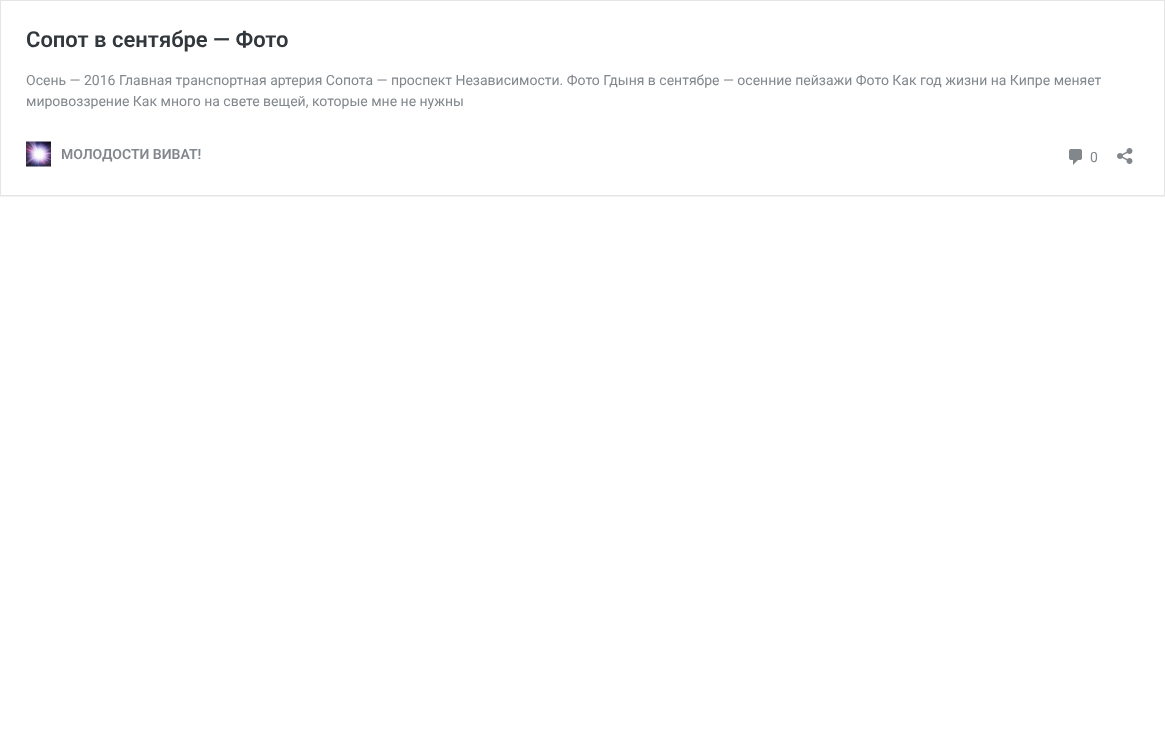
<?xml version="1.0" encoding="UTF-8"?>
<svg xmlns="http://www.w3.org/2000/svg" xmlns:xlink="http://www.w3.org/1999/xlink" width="1165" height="750">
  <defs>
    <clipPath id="clip1"><rect x="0" y="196" width="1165" height="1" /></clipPath>
  </defs>
  <rect width="100%" height="100%" fill="#ffffff" />
  <g clip-path="url(#clip1)">
    <rect y="1" width="1165" height="196" fill="#000000" fill-opacity="0.05" filter="blur(0.5px)" />
  </g>
  <rect x="0.5" y="0.5" width="1164" height="195" fill="none" stroke="#e5e5e5" />
  <image x="26" y="141" width="25" height="26" xlink:href="image1.png" />
  <image x="1069" y="149" width="13" height="16" xlink:href="image2.png" />
  <image x="1117" y="148" width="16" height="16" xlink:href="image3.png" />
  <text x="26" y="47" style="font-family: Roboto; font-size: 22px; font-weight: 600; fill: #32373c">Сопот в сентябре — Фото</text>
  <text x="26" y="85" style="font-family: Roboto; font-size: 14px; fill: #82878c">Осень — 2016 Главная транспортная артерия Сопота — проспект Независимости. Фото Гдыня в сентябре — осенние пейзажи Фото Как год жизни на Кипре меняет</text>
  <text x="26" y="106" style="font-family: Roboto; font-size: 14px; fill: #82878c">мировоззрение Как много на свете вещей, которые мне не нужны</text>
  <text x="61" y="159" style="font-family: Roboto; font-size: 14px; font-weight: 600; fill: #82878c">МОЛОДОСТИ ВИВАТ!</text>
  <text x="1090" y="162" style="font-family: Roboto; font-size: 14px; fill: #82878c">0</text>
</svg>
